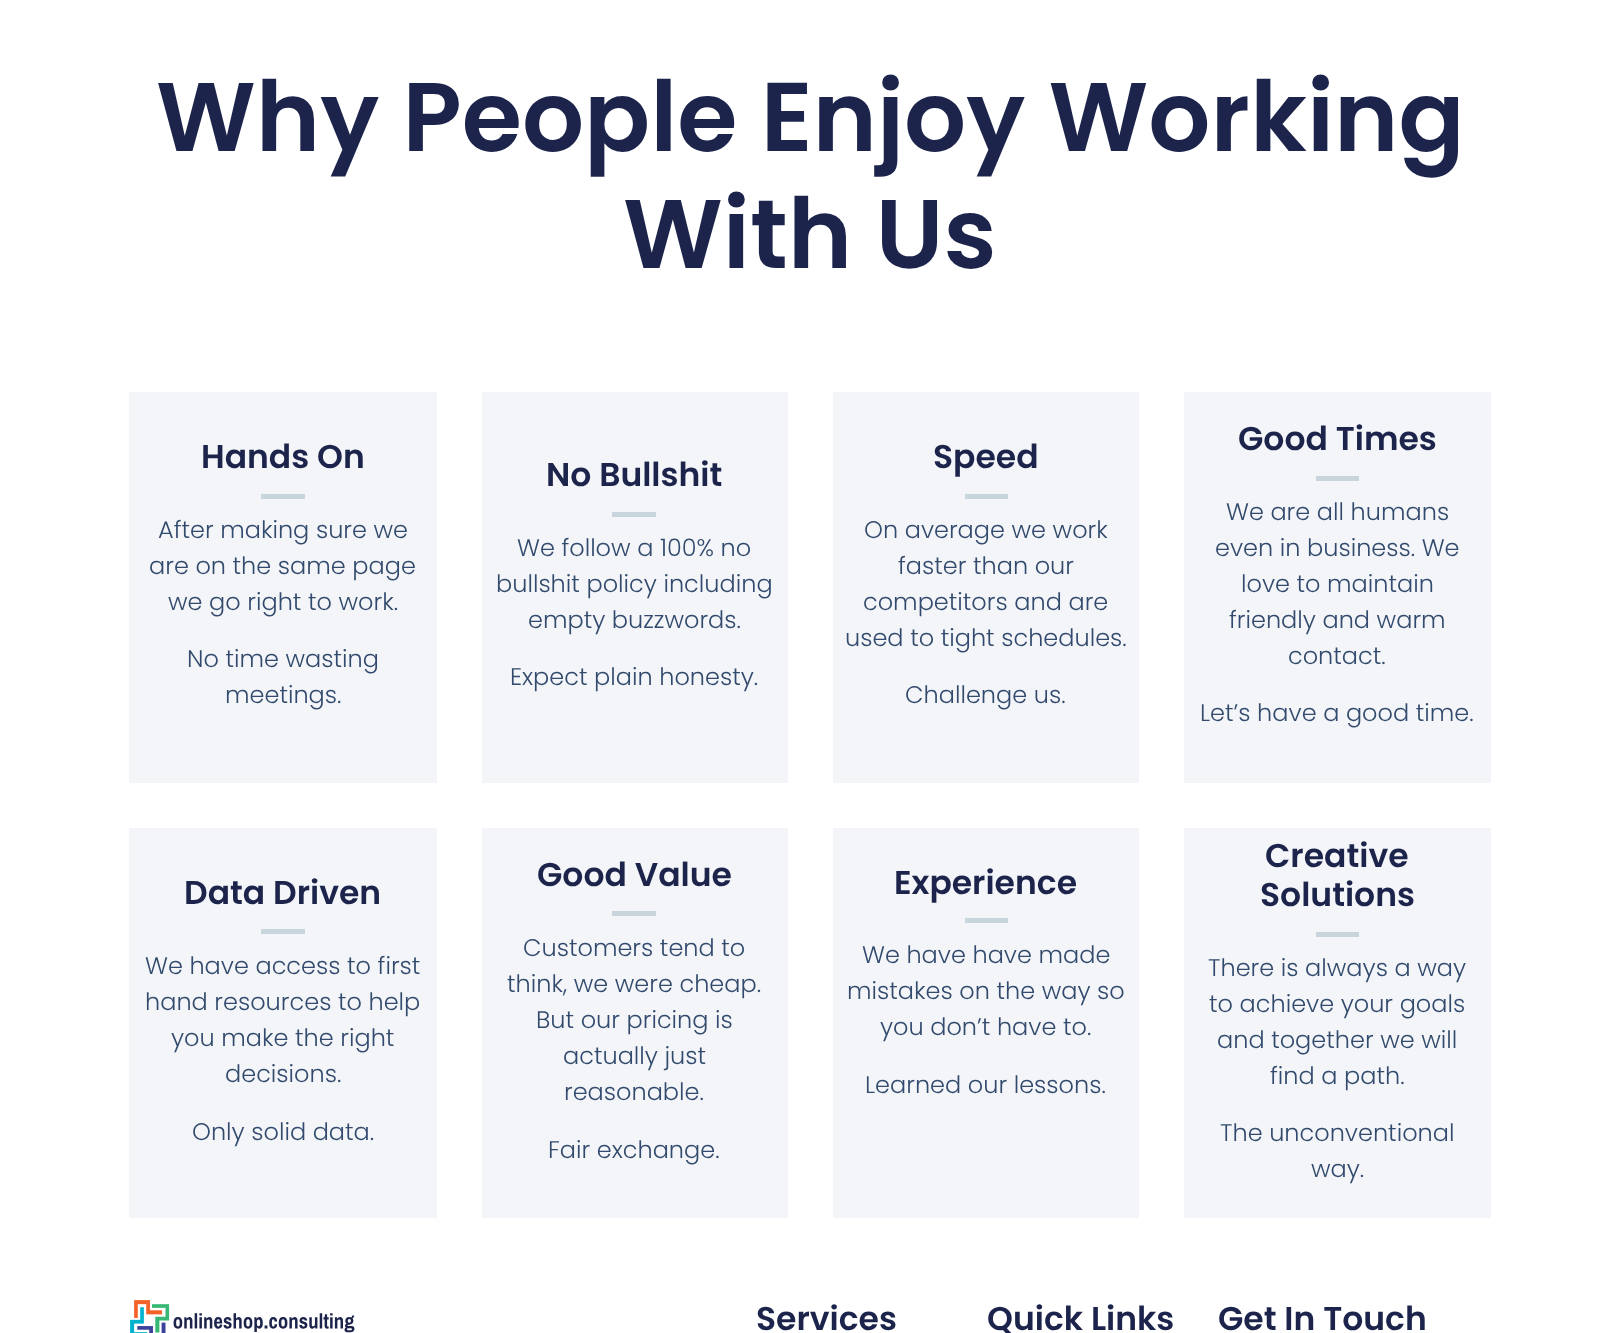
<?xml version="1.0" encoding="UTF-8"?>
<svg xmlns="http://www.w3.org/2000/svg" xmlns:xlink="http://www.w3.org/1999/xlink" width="1620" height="1333">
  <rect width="100%" height="100%" fill="#ffffff" />
  <rect x="129" y="392" width="308" height="391" fill="#f3f5f8" />
  <rect x="261" y="494" width="44" height="5" fill="#c8d5dc" />
  <rect x="482" y="392" width="306" height="391" fill="#f3f5f8" />
  <rect x="612" y="512" width="44" height="5" fill="#c8d5dc" />
  <rect x="833" y="392" width="306" height="391" fill="#f3f5f8" />
  <rect x="965" y="494" width="43" height="5" fill="#c8d5dc" />
  <rect x="1184" y="392" width="307" height="391" fill="#f3f5f8" />
  <rect x="1316" y="476" width="43" height="5" fill="#c8d5dc" />
  <rect x="129" y="828" width="308" height="390" fill="#f3f5f8" />
  <rect x="261" y="929" width="44" height="5" fill="#c8d5dc" />
  <rect x="482" y="828" width="306" height="390" fill="#f3f5f8" />
  <rect x="612" y="911" width="44" height="5" fill="#c8d5dc" />
  <rect x="833" y="828" width="306" height="390" fill="#f3f5f8" />
  <rect x="965" y="918" width="43" height="5" fill="#c8d5dc" />
  <rect x="1184" y="828" width="307" height="390" fill="#f3f5f8" />
  <rect x="1316" y="932" width="43" height="5" fill="#c8d5dc" />
  <image x="130" y="1300" width="225" height="33" xlink:href="image1.png" />
  <text x="156" y="151" style="font-family: Poppins; font-size: 97.5px; font-weight: 600; fill: #1c244b">Why People Enjoy Working</text>
  <text x="623" y="268" style="font-family: Poppins; font-size: 97.5px; font-weight: 600; fill: #1c244b">With Us</text>
  <text x="201" y="468" style="font-family: Poppins; font-size: 33px; font-weight: 600; fill: #1c244b">Hands On</text>
  <text x="158" y="538" style="font-family: Poppins; font-size: 24px; font-weight: 300; fill: #324a6d">After making sure we</text>
  <text x="149" y="574" style="font-family: Poppins; font-size: 24px; font-weight: 300; fill: #324a6d">are on the same page</text>
  <text x="168" y="610" style="font-family: Poppins; font-size: 24px; font-weight: 300; fill: #324a6d">we go right to work.</text>
  <text x="187" y="667" style="font-family: Poppins; font-size: 24px; font-weight: 300; fill: #324a6d">No time wasting</text>
  <text x="225" y="703" style="font-family: Poppins; font-size: 24px; font-weight: 300; fill: #324a6d">meetings.</text>
  <text x="546" y="486" style="font-family: Poppins; font-size: 33px; font-weight: 600; fill: #1c244b">No Bullshit</text>
  <text x="517" y="556" style="font-family: Poppins; font-size: 24px; font-weight: 300; fill: #324a6d">We follow a 100% no</text>
  <text x="496" y="592" style="font-family: Poppins; font-size: 24px; font-weight: 300; fill: #324a6d">bullshit policy including</text>
  <text x="528" y="628" style="font-family: Poppins; font-size: 24px; font-weight: 300; fill: #324a6d">empty buzzwords.</text>
  <text x="510" y="685" style="font-family: Poppins; font-size: 24px; font-weight: 300; fill: #324a6d">Expect plain honesty.</text>
  <text x="933" y="468" style="font-family: Poppins; font-size: 33px; font-weight: 600; fill: #1c244b">Speed</text>
  <text x="864" y="538" style="font-family: Poppins; font-size: 24px; font-weight: 300; fill: #324a6d">On average we work</text>
  <text x="898" y="574" style="font-family: Poppins; font-size: 24px; font-weight: 300; fill: #324a6d">faster than our</text>
  <text x="863" y="610" style="font-family: Poppins; font-size: 24px; font-weight: 300; fill: #324a6d">competitors and are</text>
  <text x="845" y="646" style="font-family: Poppins; font-size: 24px; font-weight: 300; fill: #324a6d">used to tight schedules.</text>
  <text x="905" y="703" style="font-family: Poppins; font-size: 24px; font-weight: 300; fill: #324a6d">Challenge us.</text>
  <text x="1238" y="450" style="font-family: Poppins; font-size: 33px; font-weight: 600; fill: #1c244b">Good Times</text>
  <text x="1226" y="520" style="font-family: Poppins; font-size: 24px; font-weight: 300; fill: #324a6d">We are all humans</text>
  <text x="1215" y="556" style="font-family: Poppins; font-size: 24px; font-weight: 300; fill: #324a6d">even in business. We</text>
  <text x="1241" y="592" style="font-family: Poppins; font-size: 24px; font-weight: 300; fill: #324a6d">love to maintain</text>
  <text x="1229" y="628" style="font-family: Poppins; font-size: 24px; font-weight: 300; fill: #324a6d">friendly and warm</text>
  <text x="1288" y="664" style="font-family: Poppins; font-size: 24px; font-weight: 300; fill: #324a6d">contact.</text>
  <text x="1200" y="721" style="font-family: Poppins; font-size: 24px; font-weight: 300; fill: #324a6d">Let’s have a good time.</text>
  <text x="184" y="904" style="font-family: Poppins; font-size: 33px; font-weight: 600; fill: #1c244b">Data Driven</text>
  <text x="145" y="974" style="font-family: Poppins; font-size: 24px; font-weight: 300; fill: #324a6d">We have access to first</text>
  <text x="145" y="1010" style="font-family: Poppins; font-size: 24px; font-weight: 300; fill: #324a6d">hand resources to help</text>
  <text x="171" y="1046" style="font-family: Poppins; font-size: 24px; font-weight: 300; fill: #324a6d">you make the right</text>
  <text x="225" y="1082" style="font-family: Poppins; font-size: 24px; font-weight: 300; fill: #324a6d">decisions.</text>
  <text x="192" y="1140" style="font-family: Poppins; font-size: 24px; font-weight: 300; fill: #324a6d">Only solid data.</text>
  <text x="537" y="886" style="font-family: Poppins; font-size: 33px; font-weight: 600; fill: #1c244b">Good Value</text>
  <text x="523" y="956" style="font-family: Poppins; font-size: 24px; font-weight: 300; fill: #324a6d">Customers tend to</text>
  <text x="507" y="992" style="font-family: Poppins; font-size: 24px; font-weight: 300; fill: #324a6d">think, we were cheap.</text>
  <text x="536" y="1028" style="font-family: Poppins; font-size: 24px; font-weight: 300; fill: #324a6d">But our pricing is</text>
  <text x="563" y="1064" style="font-family: Poppins; font-size: 24px; font-weight: 300; fill: #324a6d">actually just</text>
  <text x="564" y="1100" style="font-family: Poppins; font-size: 24px; font-weight: 300; fill: #324a6d">reasonable.</text>
  <text x="548" y="1158" style="font-family: Poppins; font-size: 24px; font-weight: 300; fill: #324a6d">Fair exchange.</text>
  <text x="894" y="894" style="font-family: Poppins; font-size: 33px; font-weight: 600; fill: #1c244b">Experience</text>
  <text x="862" y="963" style="font-family: Poppins; font-size: 24px; font-weight: 300; fill: #324a6d">We have have made</text>
  <text x="847" y="999" style="font-family: Poppins; font-size: 24px; font-weight: 300; fill: #324a6d">mistakes on the way so</text>
  <text x="880" y="1035" style="font-family: Poppins; font-size: 24px; font-weight: 300; fill: #324a6d">you don’t have to.</text>
  <text x="865" y="1093" style="font-family: Poppins; font-size: 24px; font-weight: 300; fill: #324a6d">Learned our lessons.</text>
  <text x="1265" y="867" style="font-family: Poppins; font-size: 33px; font-weight: 600; fill: #1c244b">Creative</text>
  <text x="1260" y="906" style="font-family: Poppins; font-size: 33px; font-weight: 600; fill: #1c244b">Solutions</text>
  <text x="1208" y="976" style="font-family: Poppins; font-size: 24px; font-weight: 300; fill: #324a6d">There is always a way</text>
  <text x="1209" y="1012" style="font-family: Poppins; font-size: 24px; font-weight: 300; fill: #324a6d">to achieve your goals</text>
  <text x="1217" y="1048" style="font-family: Poppins; font-size: 24px; font-weight: 300; fill: #324a6d">and together we will</text>
  <text x="1270" y="1084" style="font-family: Poppins; font-size: 24px; font-weight: 300; fill: #324a6d">find a path.</text>
  <text x="1220" y="1141" style="font-family: Poppins; font-size: 24px; font-weight: 300; fill: #324a6d">The unconventional</text>
  <text x="1311" y="1177" style="font-family: Poppins; font-size: 24px; font-weight: 300; fill: #324a6d">way.</text>
  <text x="756" y="1330" style="font-family: Poppins; font-size: 33px; font-weight: 600; fill: #1c244b">Services</text>
  <text x="987" y="1330" style="font-family: Poppins; font-size: 33px; font-weight: 600; fill: #1c244b">Quick Links</text>
  <text x="1218" y="1330" style="font-family: Poppins; font-size: 33px; font-weight: 600; fill: #1c244b">Get In Touch</text>
</svg>
